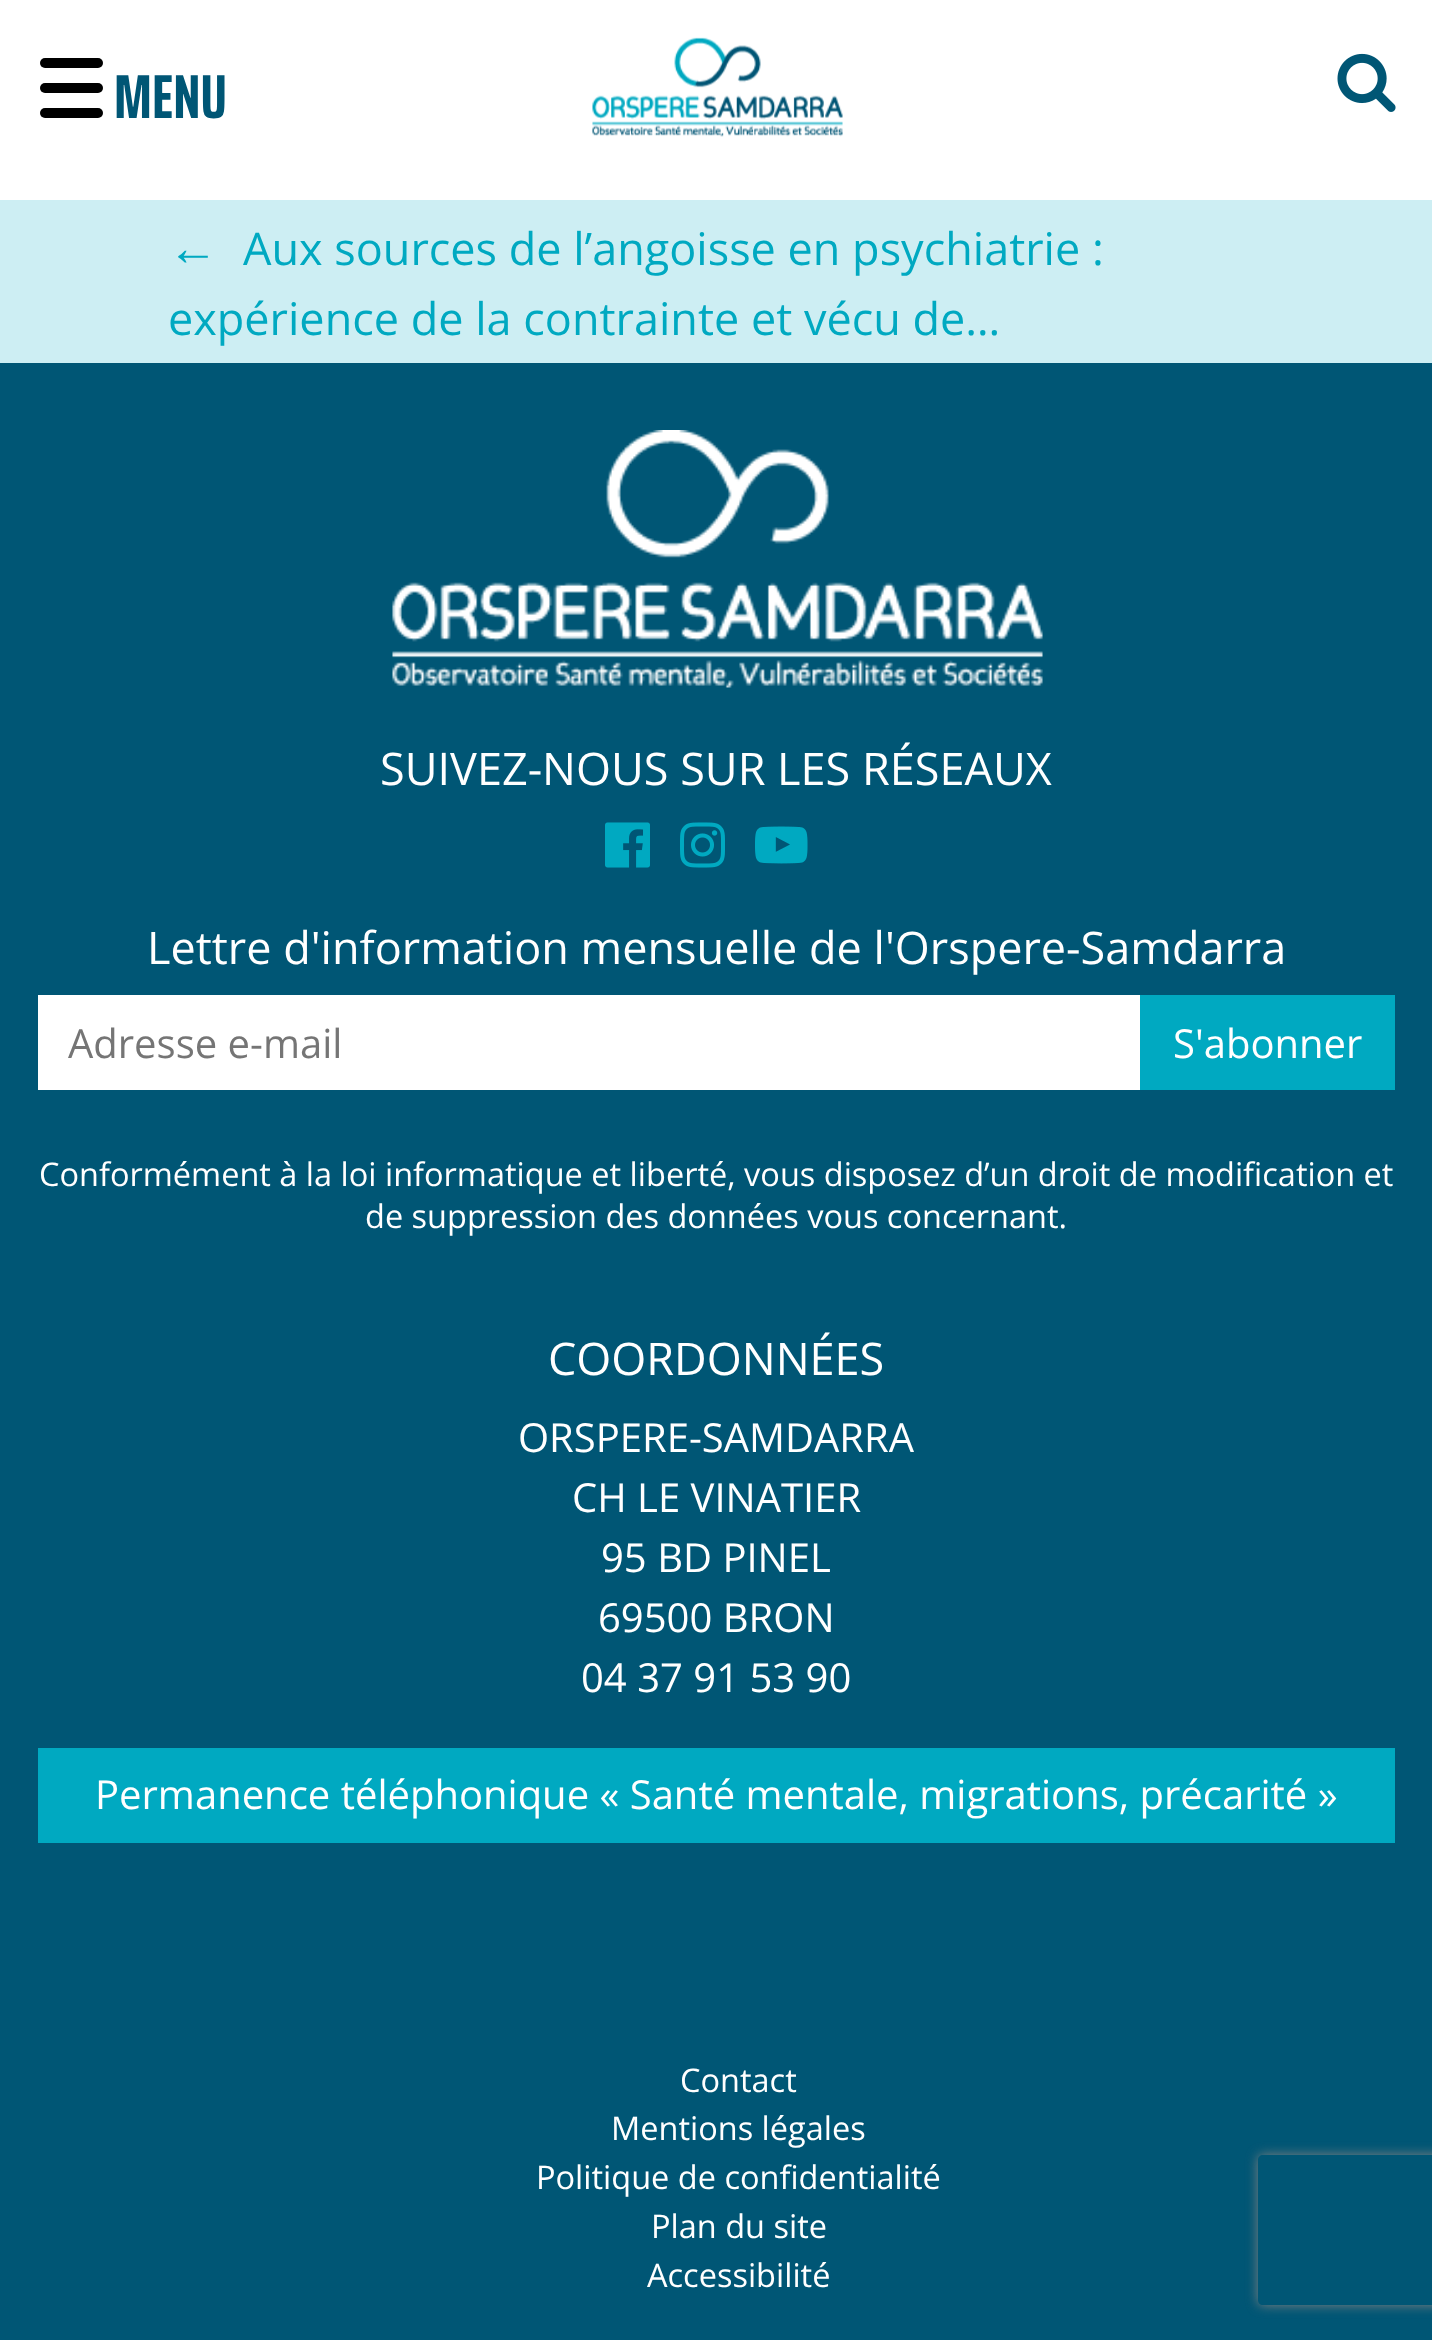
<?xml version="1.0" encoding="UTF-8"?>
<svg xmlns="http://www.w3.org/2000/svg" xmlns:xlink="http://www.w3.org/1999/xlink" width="1432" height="2340">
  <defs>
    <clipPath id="clip1"><path d="M 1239 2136 h 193 v 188 h -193 z m 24 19 h 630 c 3 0 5 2 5 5 v 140 c 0 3 -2 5 -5 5 h -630 c -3 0 -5 -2 -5 -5 v -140 c 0 -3 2 -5 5 -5 z" clip-rule="evenodd" /></clipPath>
  </defs>
  <rect width="100%" height="100%" fill="#005675" />
  <rect width="1432" height="200" fill="#ffffff" />
  <rect x="40" y="83" width="63" height="10" rx="5" fill="#000000" />
  <rect x="40" y="58" width="63" height="10" rx="5" fill="#000000" />
  <rect x="40" y="108" width="63" height="10" rx="5" fill="#000000" />
  <image x="592" y="37" width="251" height="100" xlink:href="image1.png" />
  <image x="1337" y="53" width="59" height="59" xlink:href="image2.png" />
  <rect y="200" width="1432" height="163" fill="#cdeef3" />
  <image x="392" y="430" width="651" height="258" xlink:href="image3.png" />
  <image x="605" y="822" width="45" height="46" xlink:href="image4.png" />
  <image x="680" y="822" width="45" height="46" xlink:href="image5.png" />
  <image x="755" y="826" width="53" height="38" xlink:href="image6.png" />
  <rect x="38" y="995" width="1102" height="95" fill="#ffffff" />
  <rect x="1140" y="995" width="255" height="95" fill="#00a9c1" />
  <g clip-path="url(#clip1)">
    <rect x="1258" y="2155" width="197" height="150" rx="5" fill="#808080" filter="blur(6px)" />
  </g>
  <rect x="38" y="1748" width="1357" height="95" fill="#00a9c1" />
  <text x="114" y="118" style="font-family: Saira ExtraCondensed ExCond; font-size: 62px; font-weight: bold; fill: #005675">MENU</text>
  <text x="168" y="265" style="font-family: Liberation Sans; font-size: 50px; fill: #00a9c1">←</text>
  <text x="243" y="265" style="font-family: Open Sans; font-size: 45px; fill: #00a9c1">Aux sources de l’angoisse en psychiatrie :</text>
  <text x="168" y="335" style="font-family: Open Sans; font-size: 45px; fill: #00a9c1">expérience de la contrainte et vécu de…</text>
  <text x="380" y="785" style="font-family: Open Sans; font-size: 45px; fill: #ffffff">SUIVEZ-NOUS SUR LES RÉSEAUX</text>
  <text x="147" y="964" style="font-family: Open Sans; font-size: 45px; fill: #ffffff">Lettre d'information mensuelle de l'Orspere-Samdarra</text>
  <text x="68" y="1058" style="font-family: Open Sans; font-size: 40px; fill: #757575">Adresse e-mail</text>
  <text x="1173" y="1058" style="font-family: Open Sans; font-size: 40px; fill: #ffffff">S'abonner</text>
  <text x="39" y="1186" style="font-family: Open Sans; font-size: 32.5px; fill: #ffffff">Conformément à la loi informatique et liberté, vous disposez d’un droit de modification et</text>
  <text x="365" y="1228" style="font-family: Open Sans; font-size: 32.5px; fill: #ffffff">de suppression des données vous concernant.</text>
  <text x="548" y="1375" style="font-family: Open Sans; font-size: 45px; fill: #ffffff">COORDONNÉES</text>
  <text x="518" y="1452" style="font-family: Open Sans; font-size: 40px; fill: #ffffff">ORSPERE-SAMDARRA</text>
  <text x="572" y="1512" style="font-family: Open Sans; font-size: 40px; fill: #ffffff">CH LE VINATIER</text>
  <text x="601" y="1572" style="font-family: Open Sans; font-size: 40px; fill: #ffffff">95 BD PINEL</text>
  <text x="598" y="1632" style="font-family: Open Sans; font-size: 40px; fill: #ffffff">69500 BRON</text>
  <text x="581" y="1692" style="font-family: Open Sans; font-size: 40px; fill: #ffffff">04 37 91 53 90</text>
  <text x="95" y="1809" style="font-family: Open Sans; font-size: 40px; fill: #ffffff">Permanence téléphonique « Santé mentale, migrations, précarité »</text>
  <text x="680" y="2092" style="font-family: Open Sans; font-size: 32.5px; fill: #ffffff">Contact</text>
  <text x="611" y="2140" style="font-family: Open Sans; font-size: 32.5px; fill: #ffffff">Mentions légales</text>
  <text x="536" y="2189" style="font-family: Open Sans; font-size: 32.5px; fill: #ffffff">Politique de confidentialité</text>
  <text x="651" y="2238" style="font-family: Open Sans; font-size: 32.5px; fill: #ffffff">Plan du site</text>
  <text x="647" y="2287" style="font-family: Open Sans; font-size: 32.5px; fill: #ffffff">Accessibilité</text>
</svg>
